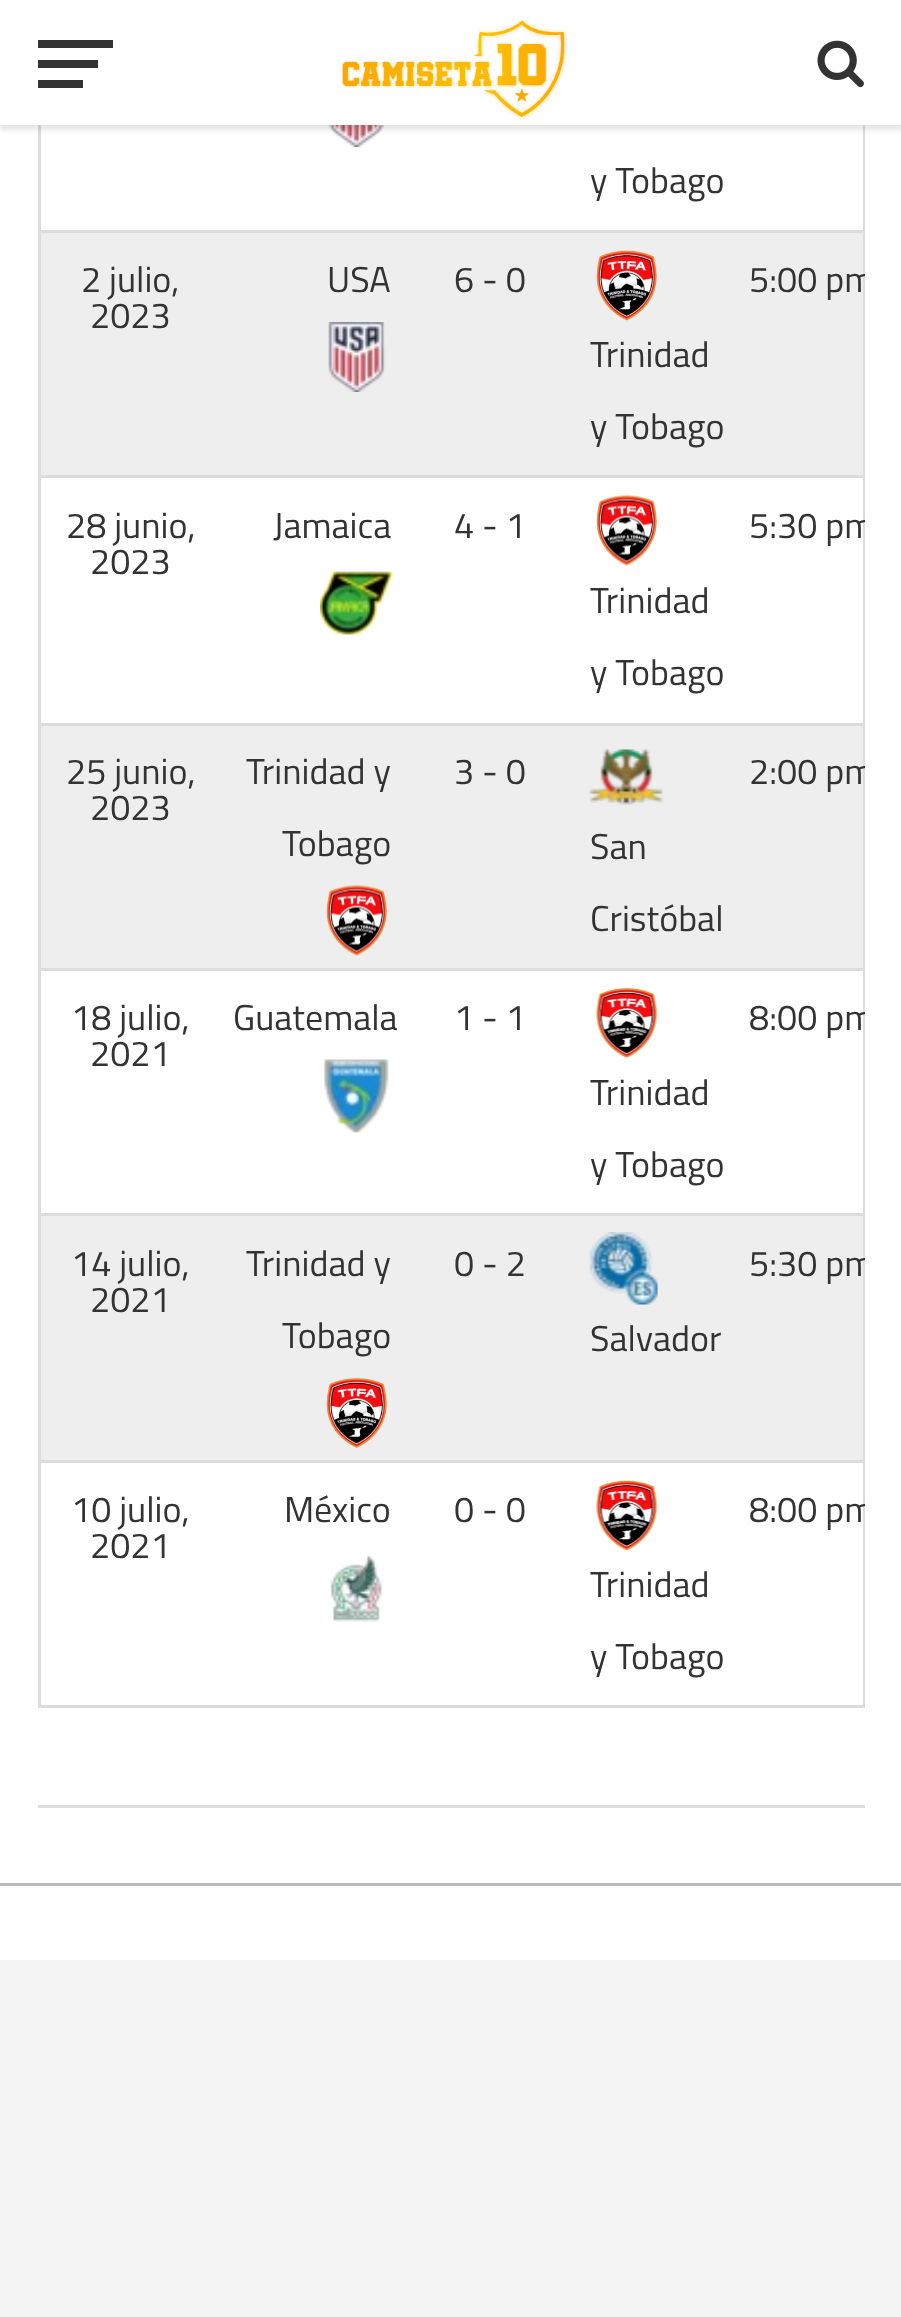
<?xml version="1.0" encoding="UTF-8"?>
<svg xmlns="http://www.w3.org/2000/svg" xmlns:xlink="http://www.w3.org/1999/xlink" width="901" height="2317">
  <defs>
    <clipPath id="clip1"><rect x="38" width="827" height="1708" /></clipPath>
  </defs>
  <rect width="100%" height="100%" fill="#ffffff" />
  <image x="328" y="125" width="57" height="22" xlink:href="image3.png" />
  <rect x="38" y="230" width="827" height="3" fill="#dcdcdc" />
  <rect x="38" y="475" width="827" height="3" fill="#dcdcdc" />
  <rect x="38" y="723" width="827" height="3" fill="#dcdcdc" />
  <rect x="38" y="968" width="827" height="3" fill="#dcdcdc" />
  <rect x="38" y="1213" width="827" height="3" fill="#dcdcdc" />
  <rect x="38" y="1460" width="827" height="3" fill="#dcdcdc" />
  <rect x="863" y="1460" width="2" height="248" fill="#dcdcdc" />
  <rect x="863" y="1213" width="2" height="250" fill="#dcdcdc" />
  <rect x="863" y="968" width="2" height="247" fill="#dcdcdc" />
  <rect x="863" y="723" width="2" height="247" fill="#dcdcdc" />
  <rect x="863" y="475" width="2" height="250" fill="#dcdcdc" />
  <rect x="863" y="125" width="2" height="353" fill="#dcdcdc" />
  <rect x="38" y="1705" width="827" height="3" fill="#dcdcdc" />
  <rect x="38" y="1460" width="3" height="248" fill="#dcdcdc" />
  <rect x="38" y="1213" width="3" height="250" fill="#dcdcdc" />
  <rect x="38" y="968" width="3" height="247" fill="#dcdcdc" />
  <rect x="38" y="723" width="3" height="247" fill="#dcdcdc" />
  <rect x="38" y="475" width="3" height="250" fill="#dcdcdc" />
  <rect x="38" y="125" width="3" height="353" fill="#dcdcdc" />
  <rect y="5" width="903" height="125" fill="#000000" fill-opacity="0.1" filter="blur(2.5px)" />
  <rect y="2" width="901" height="123" fill="#ffffff" />
  <rect x="38" y="40" width="75" height="8" fill="#333333" />
  <rect x="38" y="60" width="60" height="8" fill="#333333" />
  <rect x="38" y="80" width="45" height="8" fill="#333333" />
  <image x="341" y="18" width="227" height="102" xlink:href="image1.png" />
  <image x="817" y="40" width="47" height="48" xlink:href="image2.png" />
  <rect y="1883" width="901" height="3" fill="#bbbbbb" />
  <rect x="41" y="233" width="822" height="242" fill="#eeeeee" />
  <image x="328" y="322" width="58" height="70" xlink:href="image4.png" />
  <image x="596" y="250" width="61" height="71" xlink:href="image5.png" />
  <image x="320" y="571" width="73" height="64" xlink:href="image6.png" />
  <image x="596" y="495" width="61" height="71" xlink:href="image7.png" />
  <rect x="41" y="726" width="822" height="242" fill="#eeeeee" />
  <image x="326" y="885" width="61" height="71" xlink:href="image8.png" />
  <image x="589" y="749" width="74" height="56" xlink:href="image9.png" />
  <image x="323" y="1059" width="66" height="74" xlink:href="image10.png" />
  <image x="596" y="987" width="62" height="71" xlink:href="image11.png" />
  <rect x="41" y="1216" width="822" height="244" fill="#eeeeee" />
  <image x="326" y="1377" width="61" height="71" xlink:href="image12.png" />
  <image x="589" y="1232" width="69" height="73" xlink:href="image13.png" />
  <image x="330" y="1554" width="52" height="68" xlink:href="image14.png" />
  <image x="596" y="1480" width="62" height="71" xlink:href="image15.png" />
  <rect x="38" y="1805" width="827" height="3" fill="#dddddd" />
  <rect y="1960" width="901" height="357" fill="#f4f4f4" />
  <text x="590" y="193" style="font-family: Titillium Web; font-size: 36px; fill: #333333">y Tobago</text>
  <text x="81" y="292" style="font-family: Titillium Web; font-size: 36px; fill: #333333">2 julio,</text>
  <text x="90" y="328" style="font-family: Titillium Web; font-size: 36px; fill: #333333">2023</text>
  <text x="327" y="292" style="font-family: Titillium Web; font-size: 36px; fill: #333333">USA</text>
  <text x="454" y="292" style="font-family: Titillium Web; font-size: 36px; fill: #333333">6 - 0</text>
  <g clip-path="url(#clip1)">
    <text x="749" y="292" style="font-family: Titillium Web; font-size: 36px; fill: #333333">5:00 pm</text>
  </g>
  <text x="590" y="367" style="font-family: Titillium Web; font-size: 36px; fill: #333333">Trinidad</text>
  <text x="590" y="439" style="font-family: Titillium Web; font-size: 36px; fill: #333333">y Tobago</text>
  <text x="66" y="538" style="font-family: Titillium Web; font-size: 36px; fill: #333333">28 junio,</text>
  <text x="90" y="574" style="font-family: Titillium Web; font-size: 36px; fill: #333333">2023</text>
  <text x="273" y="538" style="font-family: Titillium Web; font-size: 36px; fill: #333333">Jamaica</text>
  <text x="454" y="538" style="font-family: Titillium Web; font-size: 36px; fill: #333333">4 - 1</text>
  <g clip-path="url(#clip1)">
    <text x="749" y="538" style="font-family: Titillium Web; font-size: 36px; fill: #333333">5:30 pm</text>
  </g>
  <text x="590" y="613" style="font-family: Titillium Web; font-size: 36px; fill: #333333">Trinidad</text>
  <text x="590" y="685" style="font-family: Titillium Web; font-size: 36px; fill: #333333">y Tobago</text>
  <text x="66" y="784" style="font-family: Titillium Web; font-size: 36px; fill: #333333">25 junio,</text>
  <text x="90" y="820" style="font-family: Titillium Web; font-size: 36px; fill: #333333">2023</text>
  <text x="246" y="784" style="font-family: Titillium Web; font-size: 36px; fill: #333333">Trinidad y</text>
  <text x="282" y="856" style="font-family: Titillium Web; font-size: 36px; fill: #333333">Tobago</text>
  <text x="454" y="784" style="font-family: Titillium Web; font-size: 36px; fill: #333333">3 - 0</text>
  <g clip-path="url(#clip1)">
    <text x="749" y="784" style="font-family: Titillium Web; font-size: 36px; fill: #333333">2:00 pm</text>
  </g>
  <text x="590" y="859" style="font-family: Titillium Web; font-size: 36px; fill: #333333">San</text>
  <text x="590" y="931" style="font-family: Titillium Web; font-size: 36px; fill: #333333">Cristóbal</text>
  <text x="71" y="1030" style="font-family: Titillium Web; font-size: 36px; fill: #333333">18 julio,</text>
  <text x="90" y="1066" style="font-family: Titillium Web; font-size: 36px; fill: #333333">2021</text>
  <text x="233" y="1030" style="font-family: Titillium Web; font-size: 36px; fill: #333333">Guatemala</text>
  <text x="454" y="1030" style="font-family: Titillium Web; font-size: 36px; fill: #333333">1 - 1</text>
  <g clip-path="url(#clip1)">
    <text x="749" y="1030" style="font-family: Titillium Web; font-size: 36px; fill: #333333">8:00 pm</text>
  </g>
  <text x="590" y="1105" style="font-family: Titillium Web; font-size: 36px; fill: #333333">Trinidad</text>
  <text x="590" y="1177" style="font-family: Titillium Web; font-size: 36px; fill: #333333">y Tobago</text>
  <text x="71" y="1276" style="font-family: Titillium Web; font-size: 36px; fill: #333333">14 julio,</text>
  <text x="90" y="1312" style="font-family: Titillium Web; font-size: 36px; fill: #333333">2021</text>
  <text x="246" y="1276" style="font-family: Titillium Web; font-size: 36px; fill: #333333">Trinidad y</text>
  <text x="282" y="1348" style="font-family: Titillium Web; font-size: 36px; fill: #333333">Tobago</text>
  <text x="454" y="1276" style="font-family: Titillium Web; font-size: 36px; fill: #333333">0 - 2</text>
  <g clip-path="url(#clip1)">
    <text x="749" y="1276" style="font-family: Titillium Web; font-size: 36px; fill: #333333">5:30 pm</text>
  </g>
  <text x="590" y="1351" style="font-family: Titillium Web; font-size: 36px; fill: #333333">Salvador</text>
  <text x="71" y="1522" style="font-family: Titillium Web; font-size: 36px; fill: #333333">10 julio,</text>
  <text x="90" y="1558" style="font-family: Titillium Web; font-size: 36px; fill: #333333">2021</text>
  <text x="284" y="1522" style="font-family: Titillium Web; font-size: 36px; fill: #333333">México</text>
  <text x="454" y="1522" style="font-family: Titillium Web; font-size: 36px; fill: #333333">0 - 0</text>
  <g clip-path="url(#clip1)">
    <text x="749" y="1522" style="font-family: Titillium Web; font-size: 36px; fill: #333333">8:00 pm</text>
  </g>
  <text x="590" y="1597" style="font-family: Titillium Web; font-size: 36px; fill: #333333">Trinidad</text>
  <text x="590" y="1669" style="font-family: Titillium Web; font-size: 36px; fill: #333333">y Tobago</text>
</svg>
